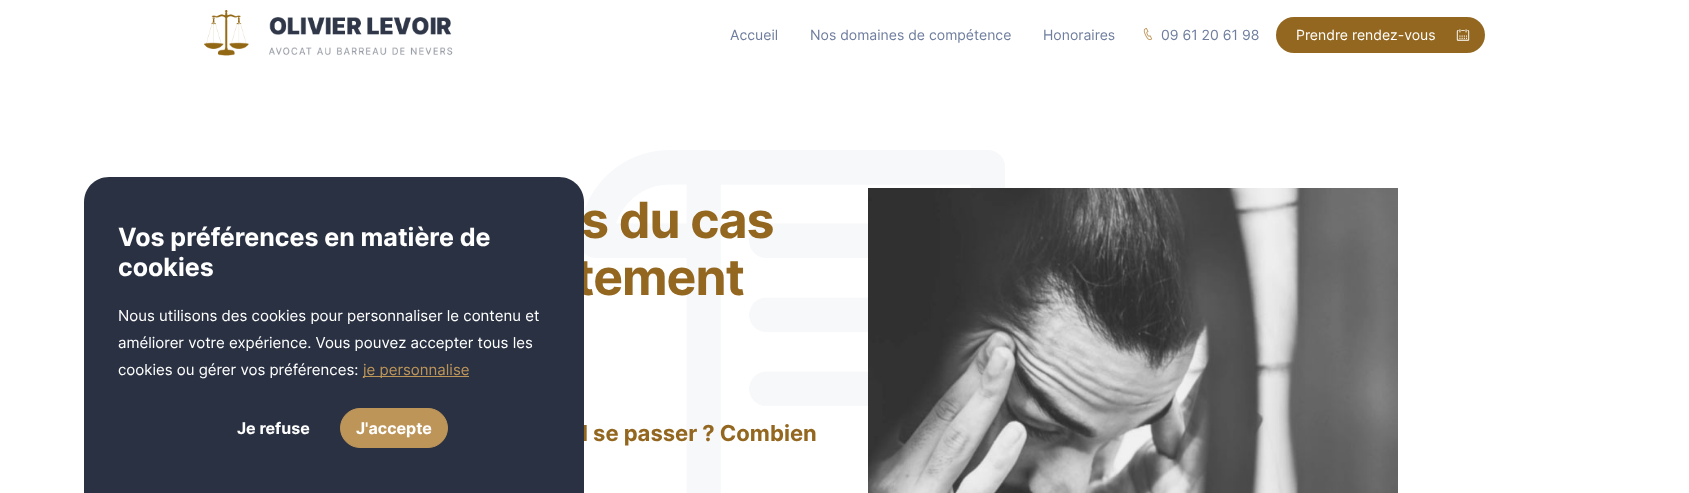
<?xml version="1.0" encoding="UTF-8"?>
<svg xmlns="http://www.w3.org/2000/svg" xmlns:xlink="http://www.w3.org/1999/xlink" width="1689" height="493">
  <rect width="100%" height="100%" fill="#ffffff" />
  <image x="204" y="10" width="249" height="46" xlink:href="image1.png" />
  <image x="1143" y="27" width="10" height="14" xlink:href="image2.png" />
  <rect x="1276" y="17" width="209" height="36" rx="18" fill="#93671f" />
  <image x="584" y="150" width="421" height="343" xlink:href="image3.png" />
  <image x="868" y="188" width="530" height="305" xlink:href="image4.png" />
  <text x="730" y="40" style="font-family: Inter; font-size: 14px; fill: #6f7e9e">Accueil</text>
  <text x="810" y="40" style="font-family: Inter; font-size: 14px; fill: #6f7e9e">Nos domaines de compétence</text>
  <text x="1043" y="40" style="font-family: Inter; font-size: 14px; fill: #6f7e9e">Honoraires</text>
  <text x="1161" y="40" style="font-family: Inter; font-size: 14px; fill: #6f7e9e">09 61 20 61 98</text>
  <text x="1296" y="40" style="font-family: Inter; font-size: 14px; fill: #ffffff">Prendre rendez-vous</text>
  <text x="1456" y="42" style="font-family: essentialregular; font-size: 14px; fill: #ffffff">@</text>
  <text x="581" y="238" style="font-family: Inter; font-size: 50px; font-weight: bold; letter-spacing: -1px; fill: #93671f">s du cas</text>
  <text x="575" y="295" style="font-family: Inter; font-size: 50px; font-weight: bold; letter-spacing: -1px; fill: #93671f">tement</text>
  <text x="582" y="441" style="font-family: Inter; font-size: 22px; font-weight: bold; fill: #93671f">l se passer ? Combien</text>
  <path d="M 109 177 h 450 c 14 0 25 11 25 25 v 291 h -500 v -291 c 0 -14 11 -25 25 -25 z" fill="#293142" />
  <rect x="340.5" y="408.5" width="107" height="39" rx="19.5" fill="#be9559" stroke="#be9559" />
  <text x="356" y="434" style="font-family: Inter; font-size: 16px; font-weight: bold; fill: #ffffff">J'accepte</text>
  <text x="237" y="434" style="font-family: Inter; font-size: 16px; font-weight: bold; fill: #ffffff">Je refuse</text>
  <rect x="363" y="376" width="106" height="1" fill="#be9559" />
  <text x="363" y="375" style="font-family: Inter; font-size: 15px; fill: #be9559">je personnalise</text>
  <text x="118" y="375" style="font-family: Inter; font-size: 15px; fill: #ffffff">cookies ou gérer vos préférences:</text>
  <text x="118" y="348" style="font-family: Inter; font-size: 15px; fill: #ffffff">améliorer votre expérience. Vous pouvez accepter tous les</text>
  <text x="118" y="321" style="font-family: Inter; font-size: 15px; fill: #ffffff">Nous utilisons des cookies pour personnaliser le contenu et</text>
  <text x="118" y="276" style="font-family: Inter; font-size: 25px; font-weight: bold; fill: #ffffff">cookies</text>
  <text x="118" y="246" style="font-family: Inter; font-size: 25px; font-weight: bold; fill: #ffffff">Vos préférences en matière de</text>
</svg>
